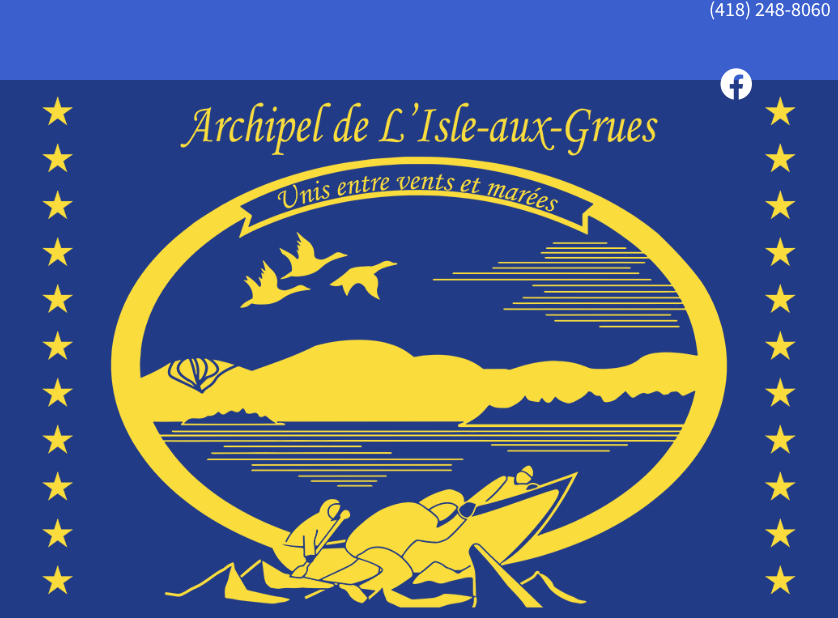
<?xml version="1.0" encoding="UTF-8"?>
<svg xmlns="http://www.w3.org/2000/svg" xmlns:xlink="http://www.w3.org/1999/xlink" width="838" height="618">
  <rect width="100%" height="100%" fill="#223b86" />
  <rect width="838" height="80" fill="#3b60ce" />
  <image x="42" y="96" width="754" height="512" xlink:href="image2.png" />
  <image x="720" y="68" width="32" height="32" xlink:href="image1.png" />
  <text x="709" y="16" style="font-family: Source Sans Pro; font-size: 20px; fill: #ffffff">(418) 248-8060</text>
</svg>
